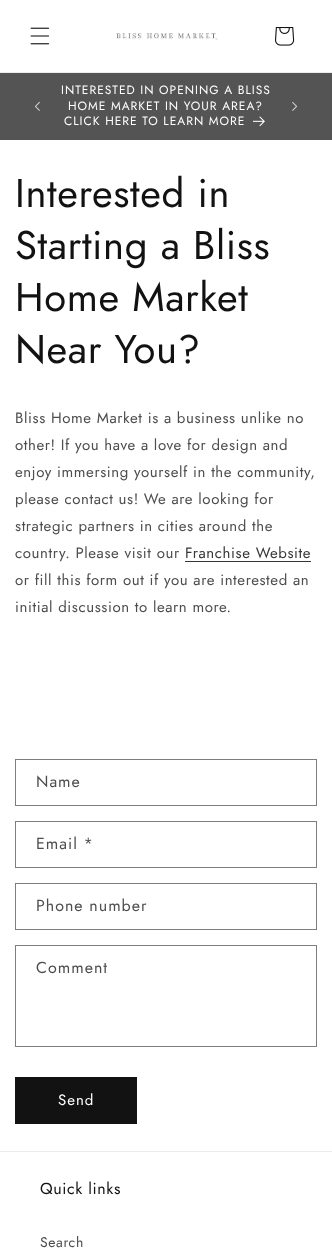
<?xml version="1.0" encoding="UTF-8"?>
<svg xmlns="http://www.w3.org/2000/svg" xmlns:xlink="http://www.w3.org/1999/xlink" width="332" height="1258">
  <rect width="100%" height="100%" fill="#ffffff" />
  <rect y="72" width="332" height="1" fill="#ececec" />
  <image x="30" y="27" width="20" height="18" xlink:href="image1.png" />
  <image x="116" y="33" width="102" height="8" xlink:href="image2.png" />
  <image x="275" y="27" width="20" height="19" xlink:href="image3.png" />
  <rect y="73" width="332" height="67" fill="#545454" />
  <image x="34" y="101" width="6" height="10" xlink:href="image4.png" />
  <image x="253" y="116" width="12" height="11" xlink:href="image5.png" />
  <image x="292" y="102" width="6" height="9" xlink:href="image6.png" />
  <rect x="185" y="561" width="126" height="1" fill="#363636" />
  <rect x="15.5" y="759.5" width="301" height="46" fill="none" stroke="#7d7d7d" />
  <rect x="15.5" y="821.5" width="301" height="46" fill="none" stroke="#7d7d7d" />
  <rect x="15.5" y="883.5" width="301" height="46" fill="none" stroke="#7d7d7d" />
  <rect x="15.5" y="945.5" width="301" height="101" fill="none" stroke="#7d7d7d" />
  <rect x="15" y="1077" width="122" height="47" fill="#121212" />
  <rect y="1151" width="332" height="1" fill="#ececec" />
  <text x="61" y="94" style="font-family: Jost; font-size: 12px; letter-spacing: 1px; fill: #ffffff">INTERESTED IN OPENING A BLISS</text>
  <text x="68" y="110" style="font-family: Jost; font-size: 12px; letter-spacing: 1px; fill: #ffffff">HOME MARKET IN YOUR AREA?</text>
  <text x="64" y="125" style="font-family: Jost; font-size: 12px; letter-spacing: 1px; fill: #ffffff">CLICK HERE TO LEARN MORE</text>
  <text x="15" y="207" style="font-family: Jost; font-size: 40px; letter-spacing: 0.6px; fill: #121212">Interested in</text>
  <text x="15" y="259" style="font-family: Jost; font-size: 40px; letter-spacing: 0.6px; fill: #121212">Starting a Bliss</text>
  <text x="15" y="311" style="font-family: Jost; font-size: 40px; letter-spacing: 0.6px; fill: #121212">Home Market</text>
  <text x="15" y="363" style="font-family: Jost; font-size: 40px; letter-spacing: 0.6px; fill: #121212">Near You?</text>
  <text x="15" y="423" style="font-family: Jost; font-size: 15px; letter-spacing: 0.6px; fill: #4d4d4d">Bliss Home Market is a business unlike no</text>
  <text x="15" y="450" style="font-family: Jost; font-size: 15px; letter-spacing: 0.6px; fill: #4d4d4d">other! If you have a love for design and</text>
  <text x="15" y="477" style="font-family: Jost; font-size: 15px; letter-spacing: 0.6px; fill: #4d4d4d">enjoy immersing yourself in the community,</text>
  <text x="15" y="504" style="font-family: Jost; font-size: 15px; letter-spacing: 0.6px; fill: #4d4d4d">please contact us! We are looking for</text>
  <text x="15" y="531" style="font-family: Jost; font-size: 15px; letter-spacing: 0.6px; fill: #4d4d4d">strategic partners in cities around the</text>
  <text x="15" y="558" style="font-family: Jost; font-size: 15px; letter-spacing: 0.6px; fill: #4d4d4d">country. Please visit our</text>
  <text x="185" y="558" style="font-family: Jost; font-size: 15px; letter-spacing: 0.6px; fill: #363636">Franchise Website</text>
  <text x="15" y="585" style="font-family: Jost; font-size: 15px; letter-spacing: 0.6px; fill: #4d4d4d">or fill this form out if you are interested an</text>
  <text x="15" y="612" style="font-family: Jost; font-size: 15px; letter-spacing: 0.6px; fill: #4d4d4d">initial discussion to learn more.</text>
  <text x="36" y="787" style="font-family: Jost; font-size: 16px; letter-spacing: 1px; fill: #4d4d4d">Name</text>
  <text x="36" y="849" style="font-family: Jost; font-size: 16px; letter-spacing: 1px; fill: #4d4d4d">Email *</text>
  <text x="36" y="911" style="font-family: Jost; font-size: 16px; letter-spacing: 1px; fill: #4d4d4d">Phone number</text>
  <text x="36" y="973" style="font-family: Jost; font-size: 16px; letter-spacing: 1px; fill: #4d4d4d">Comment</text>
  <text x="58" y="1105" style="font-family: Jost; font-size: 15px; letter-spacing: 1px; fill: #ffffff">Send</text>
  <text x="40" y="1194" style="font-family: Jost; font-size: 16px; letter-spacing: 0.6px; fill: #121212">Quick links</text>
  <text x="40" y="1247" style="font-family: Jost; font-size: 14px; letter-spacing: 0.6px; fill: #4d4d4d">Search</text>
</svg>
